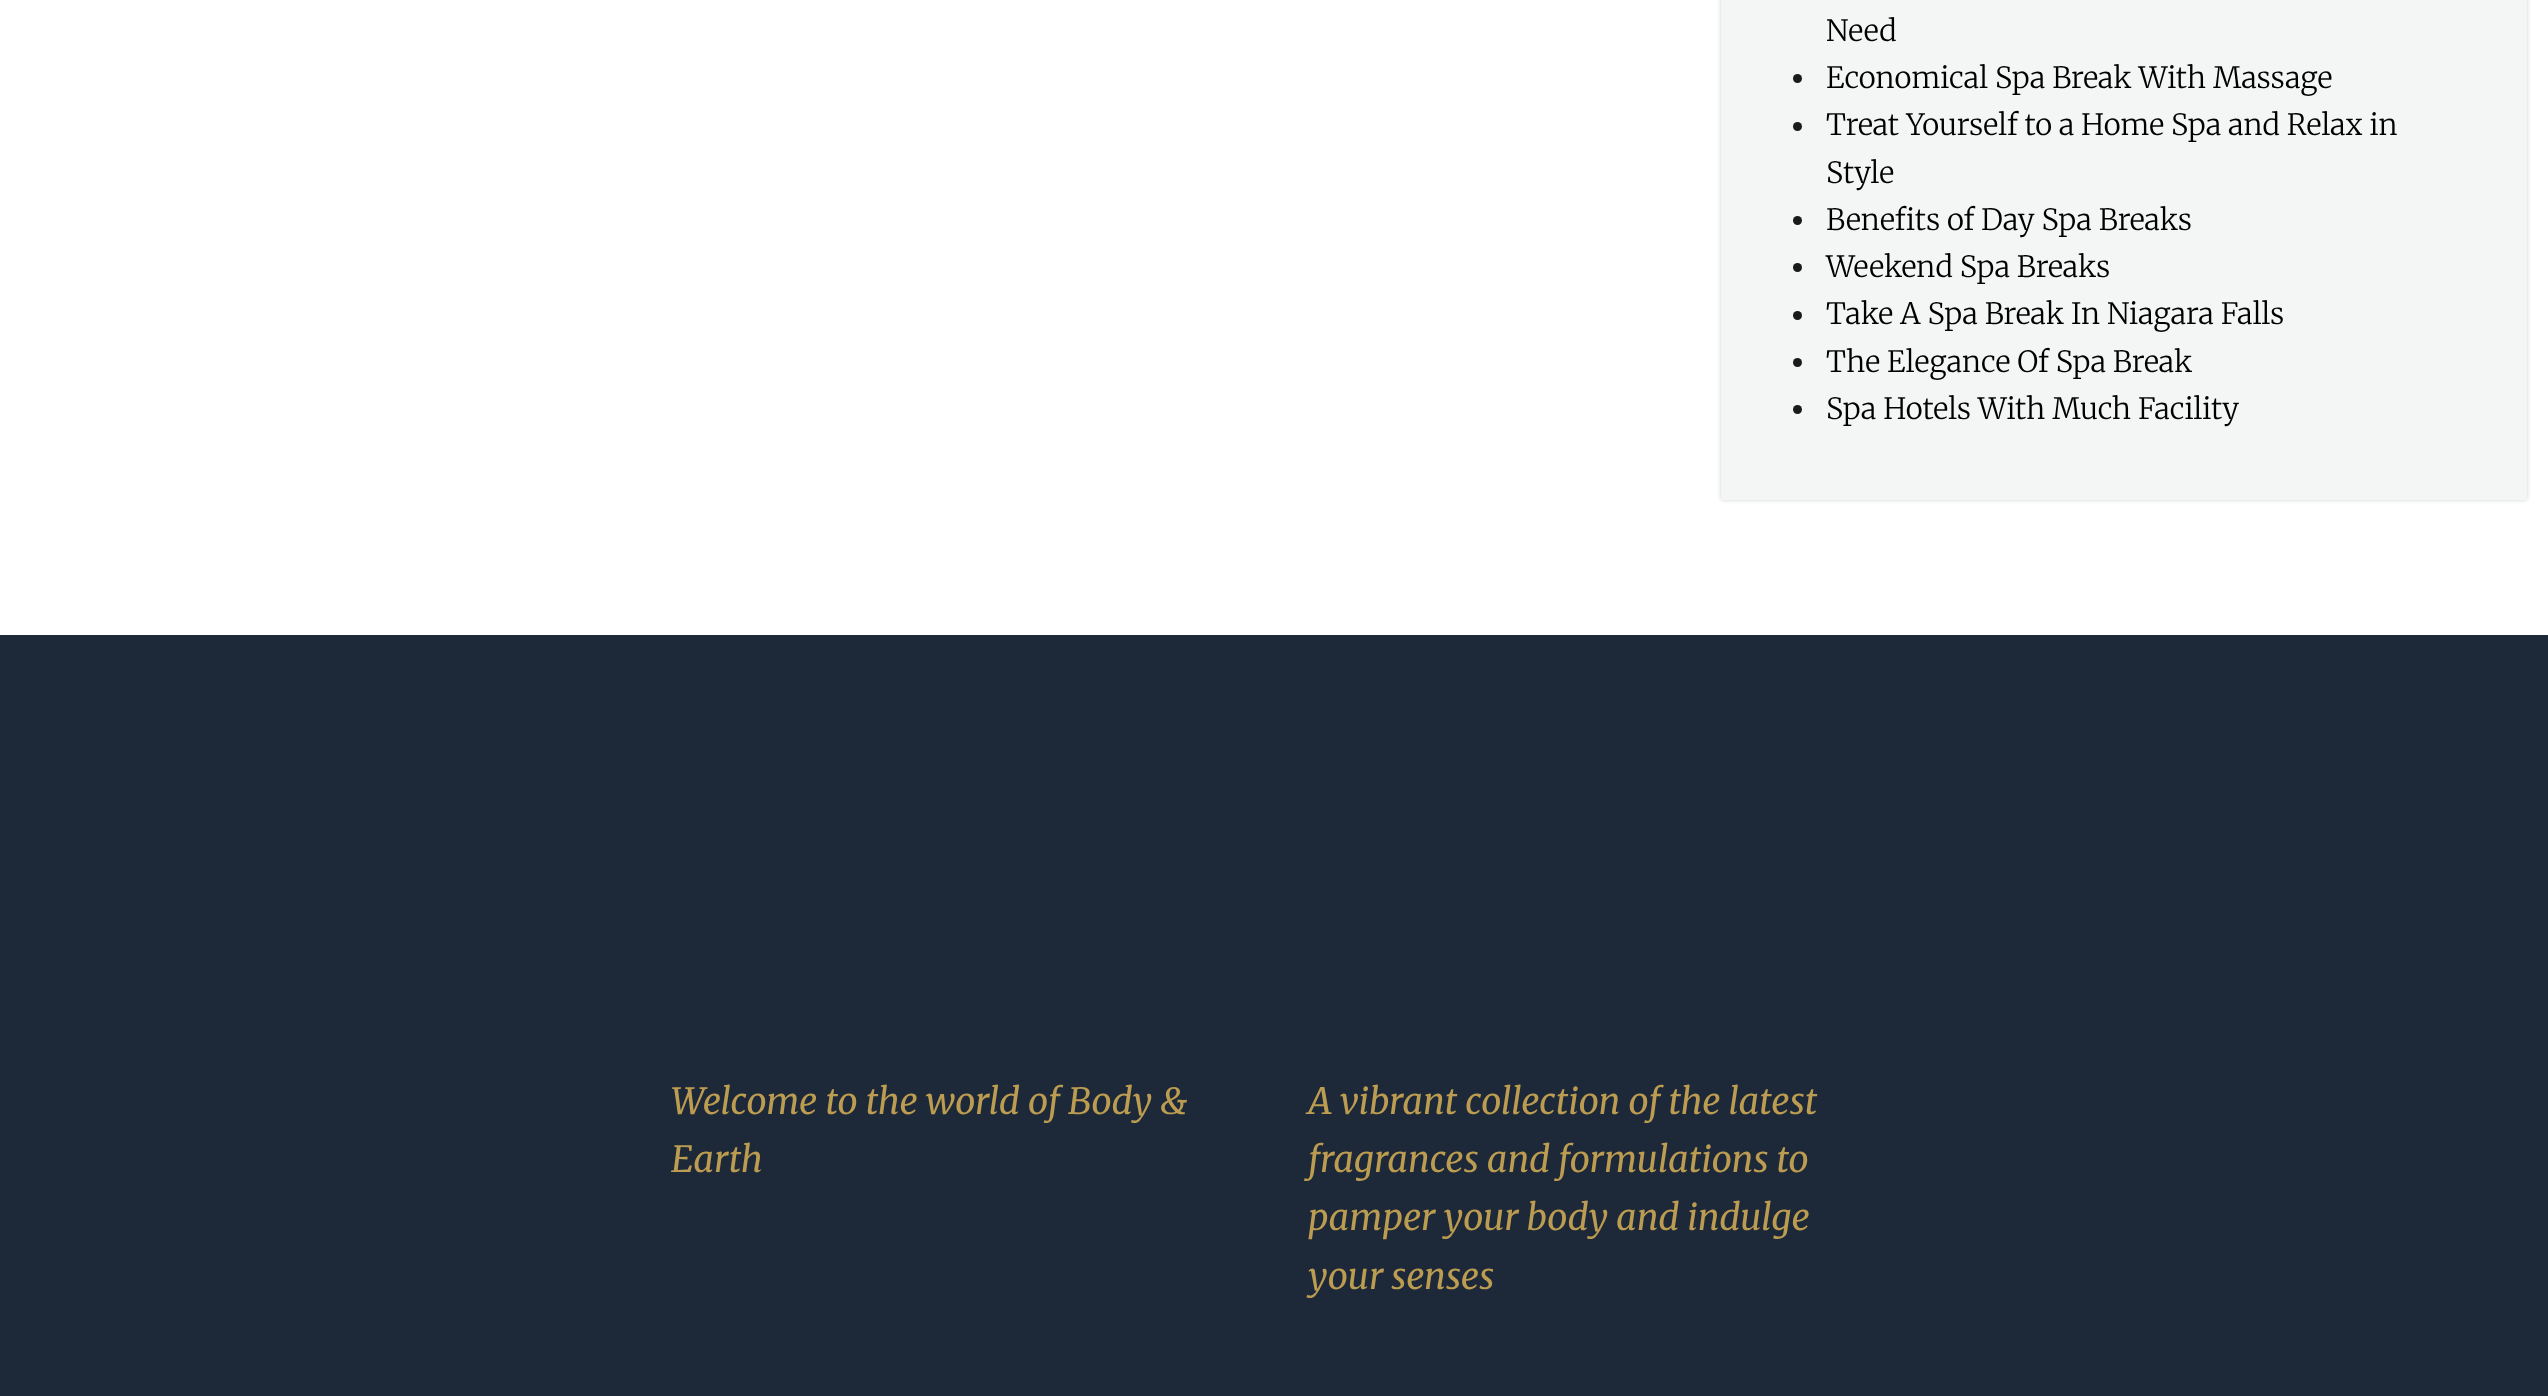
<?xml version="1.0" encoding="UTF-8"?>
<svg xmlns="http://www.w3.org/2000/svg" xmlns:xlink="http://www.w3.org/1999/xlink" width="2548" height="1396">
  <rect width="100%" height="100%" fill="#ffffff" />
  <rect x="1721" y="-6" width="806" height="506" fill="#000000" fill-opacity="0.18" filter="blur(2px)" />
  <rect x="1721" width="806" height="500" fill="#f4f5f5" />
  <circle cx="1797.5" cy="78.5" r="4.5" fill="#1a1a1a" />
  <circle cx="1797.5" cy="126.5" r="4.5" fill="#1a1a1a" />
  <circle cx="1797.5" cy="220.5" r="4.5" fill="#1a1a1a" />
  <circle cx="1797.5" cy="267.5" r="4.5" fill="#1a1a1a" />
  <circle cx="1797.5" cy="315.5" r="4.5" fill="#1a1a1a" />
  <circle cx="1797.5" cy="362.5" r="4.5" fill="#1a1a1a" />
  <circle cx="1797.5" cy="409.5" r="4.5" fill="#1a1a1a" />
  <rect y="635" width="2548" height="761" fill="#1d2939" />
  <text x="1826" y="41" style="font-family: Merriweather; font-size: 29.25px; font-weight: 300; fill: #000000">Need</text>
  <text x="1826" y="88" style="font-family: Merriweather; font-size: 29.25px; font-weight: 300; fill: #000000">Economical Spa Break With Massage</text>
  <text x="1826" y="135" style="font-family: Merriweather; font-size: 29.25px; font-weight: 300; fill: #000000">Treat Yourself to a Home Spa and Relax in</text>
  <text x="1826" y="183" style="font-family: Merriweather; font-size: 29.25px; font-weight: 300; fill: #000000">Style</text>
  <text x="1826" y="230" style="font-family: Merriweather; font-size: 29.25px; font-weight: 300; fill: #000000">Benefits of Day Spa Breaks</text>
  <text x="1826" y="277" style="font-family: Merriweather; font-size: 29.25px; font-weight: 300; fill: #000000">Weekend Spa Breaks</text>
  <text x="1826" y="324" style="font-family: Merriweather; font-size: 29.25px; font-weight: 300; fill: #000000">Take A Spa Break In Niagara Falls</text>
  <text x="1826" y="372" style="font-family: Merriweather; font-size: 29.25px; font-weight: 300; fill: #000000">The Elegance Of Spa Break</text>
  <text x="1826" y="419" style="font-family: Merriweather; font-size: 29.25px; font-weight: 300; fill: #000000">Spa Hotels With Much Facility</text>
  <text x="671" y="1114" style="font-family: Merriweather; font-size: 36px; font-style: italic; fill: #bc9c50">Welcome to the world of Body &amp;</text>
  <text x="671" y="1172" style="font-family: Merriweather; font-size: 36px; font-style: italic; fill: #bc9c50">Earth</text>
  <text x="1308" y="1114" style="font-family: Merriweather; font-size: 36px; font-style: italic; fill: #bc9c50">A vibrant collection of the latest</text>
  <text x="1308" y="1172" style="font-family: Merriweather; font-size: 36px; font-style: italic; fill: #bc9c50">fragrances and formulations to</text>
  <text x="1308" y="1230" style="font-family: Merriweather; font-size: 36px; font-style: italic; fill: #bc9c50">pamper your body and indulge</text>
  <text x="1308" y="1289" style="font-family: Merriweather; font-size: 36px; font-style: italic; fill: #bc9c50">your senses</text>
</svg>
